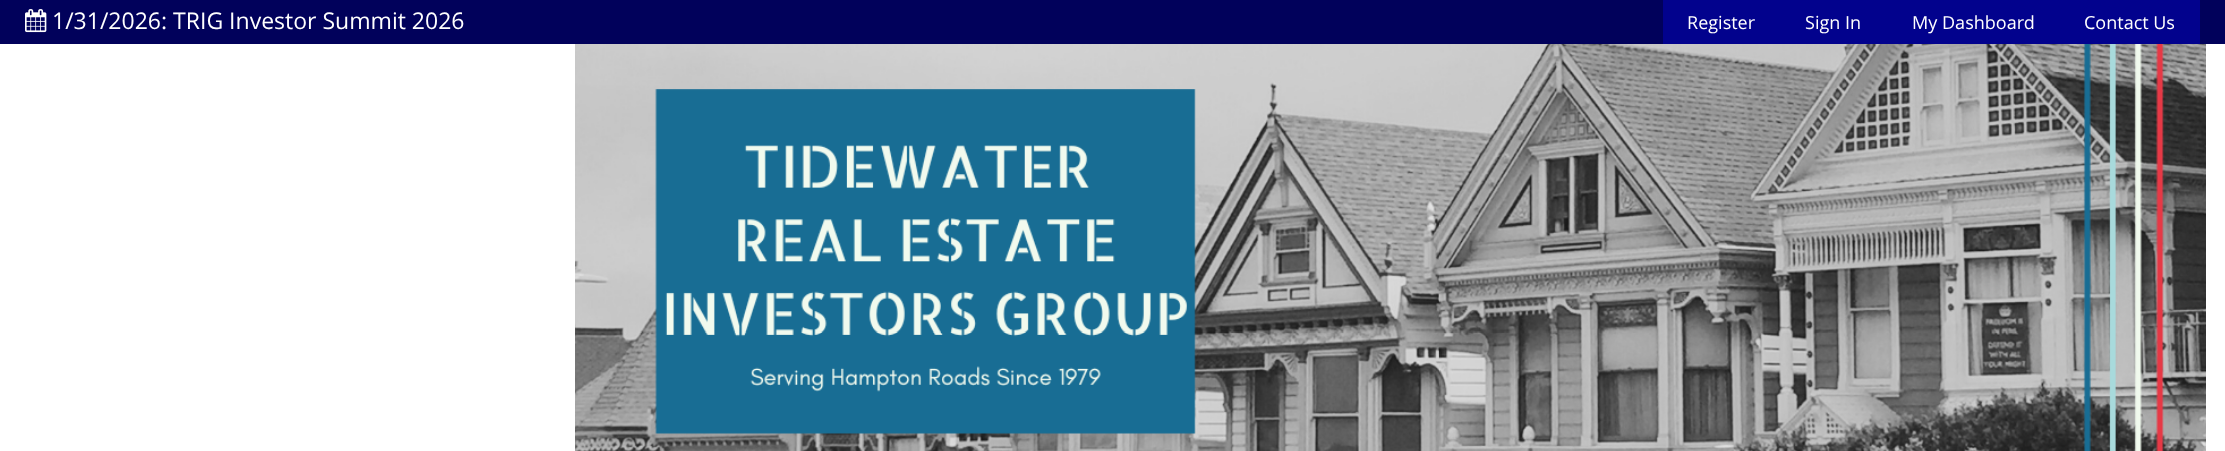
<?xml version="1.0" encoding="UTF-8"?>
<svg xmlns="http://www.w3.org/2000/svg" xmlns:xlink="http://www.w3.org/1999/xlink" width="2225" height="451">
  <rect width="100%" height="100%" fill="#ffffff" />
  <rect width="2225" height="44" fill="#01015b" />
  <image x="25" y="9" width="22" height="24" xlink:href="image1.png" />
  <rect x="1663" width="537" height="44" fill="#02028d" />
  <image x="575" y="44" width="1631" height="407" xlink:href="image2.png" />
  <text x="52" y="29" style="font-family: Open Sans; font-size: 23px; fill: #ffffff">1/31/2026: TRIG Investor Summit 2026</text>
  <text x="1687" y="29" style="font-family: Open Sans; font-size: 18px; fill: #ffffff">Register</text>
  <text x="1805" y="29" style="font-family: Open Sans; font-size: 18px; fill: #ffffff">Sign In</text>
  <text x="1912" y="29" style="font-family: Open Sans; font-size: 18px; fill: #ffffff">My Dashboard</text>
  <text x="2084" y="29" style="font-family: Open Sans; font-size: 18px; fill: #ffffff">Contact Us</text>
</svg>
